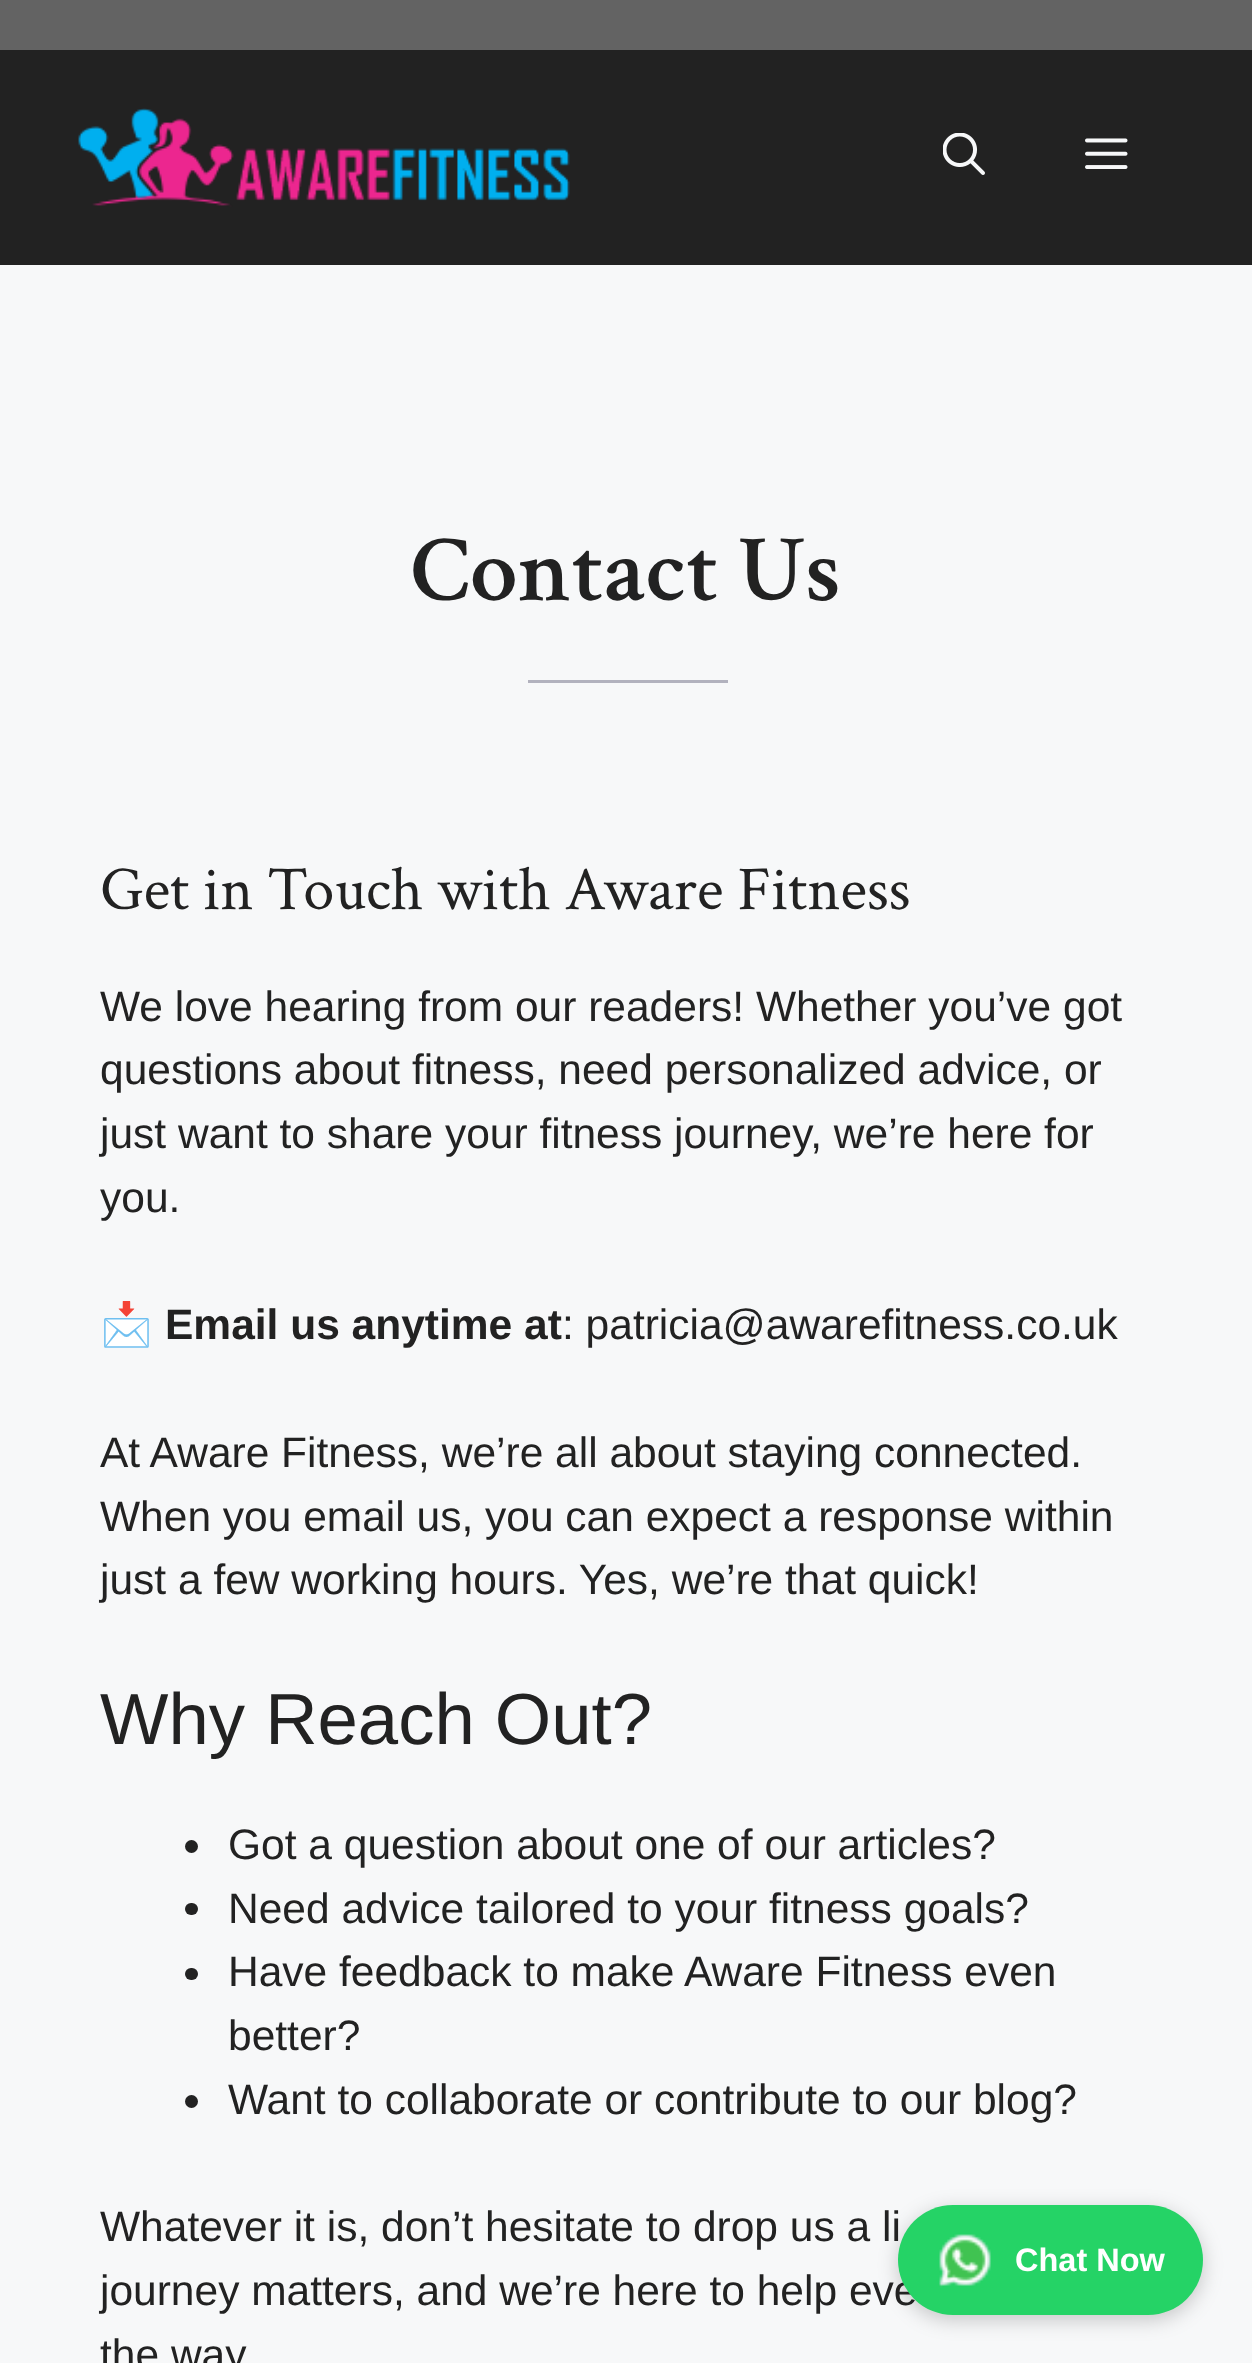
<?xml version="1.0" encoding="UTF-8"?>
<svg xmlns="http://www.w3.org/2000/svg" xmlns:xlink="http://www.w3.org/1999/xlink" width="1252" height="2363">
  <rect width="100%" height="100%" fill="#f7f8f9" />
  <rect y="50" width="1252" height="215" fill="#222222" />
  <image x="78" y="108" width="492" height="99" xlink:href="image1.png" />
  <image x="943" y="133" width="42" height="42" xlink:href="image2.png" />
  <image x="1085" y="138" width="43" height="31" xlink:href="image3.png" />
  <rect x="528" y="680" width="200" height="3" fill="#b2b2be" />
  <circle cx="191.5" cy="1846.5" r="6.5" fill="#222222" />
  <rect x="185" y="1903" width="13" height="12" rx="6" fill="#222222" />
  <rect x="185" y="1968" width="13" height="12" rx="6" fill="#222222" />
  <circle cx="191.5" cy="2101.5" r="6.5" fill="#222222" />
  <rect width="1252" height="50" fill="#636363" />
  <rect x="898" y="2210" width="305" height="110" rx="55" fill="#000000" fill-opacity="0.2" filter="blur(10px)" />
  <text x="411" y="600" style="font-family: Crimson Text; font-size: 95px; font-weight: 600; fill: #222222">Contact Us</text>
  <text x="100" y="909" style="font-family: Crimson Text; font-size: 62.5px; fill: #222222">Get in Touch with Aware Fitness</text>
  <text x="100" y="1021" style="font-family: Liberation Sans; font-size: 42.5px; fill: #222222">We love hearing from our readers! Whether you’ve got</text>
  <text x="100" y="1084" style="font-family: Liberation Sans; font-size: 42.5px; fill: #222222">questions about fitness, need personalized advice, or</text>
  <text x="100" y="1148" style="font-family: Liberation Sans; font-size: 42.5px; fill: #222222">just want to share your fitness journey, we’re here for</text>
  <text x="100" y="1212" style="font-family: Liberation Sans; font-size: 42.5px; fill: #222222">you.</text>
  <text x="100" y="1339" style="font-family: Noto Color Emoji; font-size: 42.5px; fill: #222222">📩</text>
  <text x="165" y="1339" style="font-family: Liberation Sans; font-size: 42.5px; font-weight: bold; fill: #222222">Email us anytime at</text>
  <text x="562" y="1339" style="font-family: Liberation Sans; font-size: 42.5px; fill: #222222">: patricia@awarefitness.co.uk</text>
  <text x="100" y="1467" style="font-family: Liberation Sans; font-size: 42.5px; fill: #222222">At Aware Fitness, we’re all about staying connected.</text>
  <text x="100" y="1531" style="font-family: Liberation Sans; font-size: 42.5px; fill: #222222">When you email us, you can expect a response within</text>
  <text x="100" y="1594" style="font-family: Liberation Sans; font-size: 42.5px; fill: #222222">just a few working hours. Yes, we’re that quick!</text>
  <text x="100" y="1744" style="font-family: Liberation Sans; font-size: 72.5px; fill: #222222">Why Reach Out?</text>
  <text x="228" y="1859" style="font-family: Liberation Sans; font-size: 42.5px; fill: #222222">Got a question about one of our articles?</text>
  <text x="228" y="1923" style="font-family: Liberation Sans; font-size: 42.5px; fill: #222222">Need advice tailored to your fitness goals?</text>
  <text x="228" y="1986" style="font-family: Liberation Sans; font-size: 42.5px; fill: #222222">Have feedback to make Aware Fitness even</text>
  <text x="228" y="2050" style="font-family: Liberation Sans; font-size: 42.5px; fill: #222222">better?</text>
  <text x="228" y="2114" style="font-family: Liberation Sans; font-size: 42.5px; fill: #222222">Want to collaborate or contribute to our blog?</text>
  <text x="100" y="2241" style="font-family: Liberation Sans; font-size: 42.5px; fill: #222222">Whatever it is, don’t hesitate to drop us a li</text>
  <text x="100" y="2305" style="font-family: Liberation Sans; font-size: 42.5px; fill: #222222">journey matters, and we’re here to help eve</text>
  <text x="100" y="2369" style="font-family: Liberation Sans; font-size: 42.5px; fill: #222222">the way.</text>
  <rect x="898" y="2205" width="305" height="110" rx="55" fill="#25d366" />
  <image x="939" y="2234" width="52" height="54" xlink:href="image4.png" />
  <text x="1015" y="2271" style="font-family: Liberation Sans; font-size: 32.5px; font-weight: bold; fill: #ffffff">Chat Now</text>
</svg>
